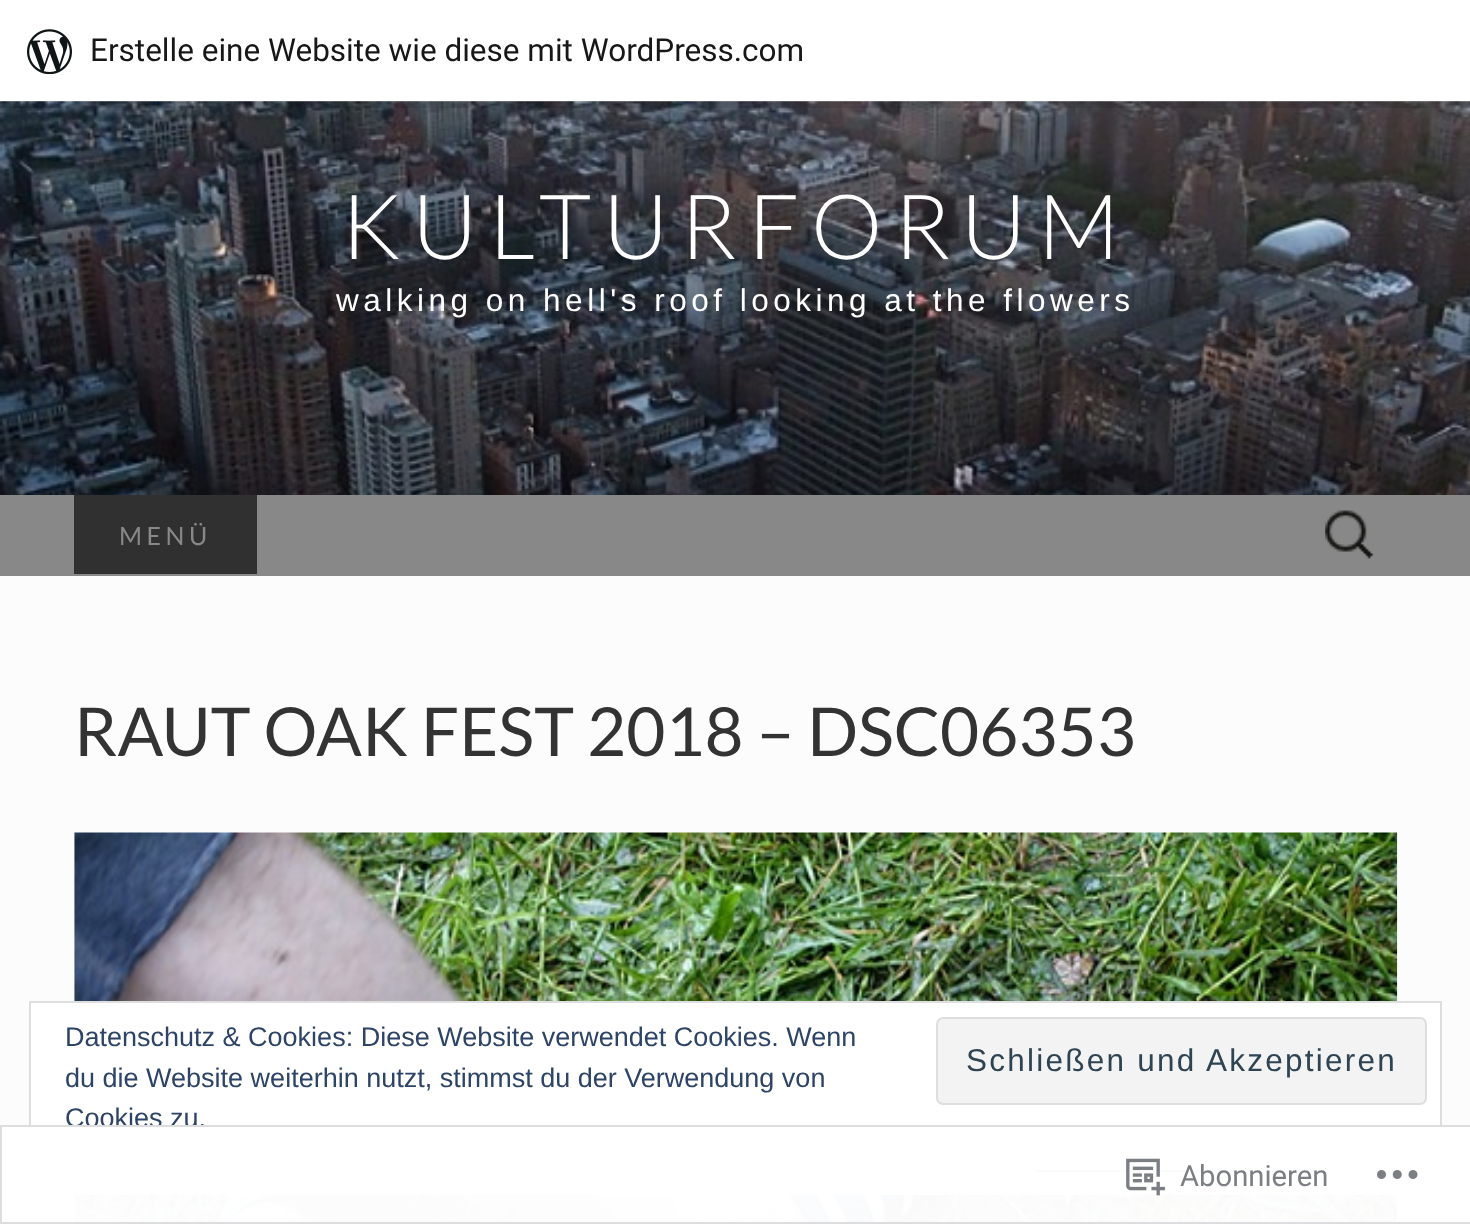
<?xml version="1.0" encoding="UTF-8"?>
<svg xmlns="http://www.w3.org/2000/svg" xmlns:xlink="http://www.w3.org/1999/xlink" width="1470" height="1224">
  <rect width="100%" height="100%" fill="#fcfcfc" />
  <image x="0" y="101" width="1470" height="394" xlink:href="image2.png" />
  <rect y="2" width="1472" height="102" fill="#000000" fill-opacity="0.05" filter="blur(2px)" />
  <path d="M 2 101 v 7 h 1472 v -101 h -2 v 94 z" fill="#000000" fill-opacity="0.08" />
  <rect width="1470" height="101" fill="#ffffff" />
  <image x="27" y="29" width="45" height="45" xlink:href="image1.png" />
  <rect y="495" width="1470" height="81" fill="#888888" />
  <rect x="74" y="495" width="183" height="79" fill="#303030" />
  <image x="1325" y="510" width="49" height="49" xlink:href="image3.png" />
  <image x="74" y="832" width="1324" height="392" xlink:href="image4.png" />
  <rect x="30" y="1002" width="1411" height="192" fill="#ffffff" stroke="#dedede" stroke-width="2" />
  <rect x="937" y="1018" width="489" height="86" rx="6" fill="#f3f3f3" stroke="#dedede" stroke-width="2" />
  <rect x="1035" y="1170" width="203" height="2" fill="#2e4467" />
  <rect x="1035" y="1175" width="203" height="2" fill="#e6e6e6" />
  <text x="90" y="61" style="font-family: Roboto; font-size: 31.5px; fill: #171717">Erstelle eine Website wie diese mit WordPress.com</text>
  <text x="341" y="259" style="font-family: Lato; font-size: 90px; font-weight: 300; letter-spacing: 11.25px; fill: #ffffff">KULTURFORUM</text>
  <text x="336" y="311" style="font-family: Liberation Sans; font-size: 31.5px; letter-spacing: 4.5px; fill: #ffffff">walking on hell's roof looking at the flowers</text>
  <text x="119" y="545" style="font-family: Lato; font-size: 25px; letter-spacing: 4.5px; fill: #888888">MENÜ</text>
  <text x="74" y="756" style="font-family: Lato; font-size: 67.5px; fill: #333333">RAUT OAK FEST 2018 – DSC06353</text>
  <text x="65" y="1046" style="font-family: Liberation Sans; font-size: 27px; fill: #2e4467">Datenschutz &amp; Cookies: Diese Website verwendet Cookies. Wenn</text>
  <text x="65" y="1087" style="font-family: Liberation Sans; font-size: 27px; fill: #2e4467">du die Website weiterhin nutzt, stimmst du der Verwendung von</text>
  <text x="966" y="1071" style="font-family: Liberation Sans; font-size: 31.5px; letter-spacing: 2.25px; fill: #2e4453">Schließen und Akzeptieren</text>
  <text x="65" y="1127" style="font-family: Liberation Sans; font-size: 27px; fill: #2e4467">Cookies zu.</text>
  <rect y="1125" width="1470" height="99" fill="#ffffff" fill-opacity="0.98" />
  <rect x="1" y="1126" width="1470" height="97" fill="none" stroke="#dcdcde" stroke-opacity="0.98" stroke-width="2" />
  <image x="1126" y="1158" width="39" height="38" xlink:href="image5.png" />
  <text x="1180" y="1186" style="font-family: Roboto; font-size: 29.25px; fill: #7b7f84">Abonnieren</text>
  <image x="1377" y="1170" width="41" height="9" xlink:href="image6.png" />
</svg>
